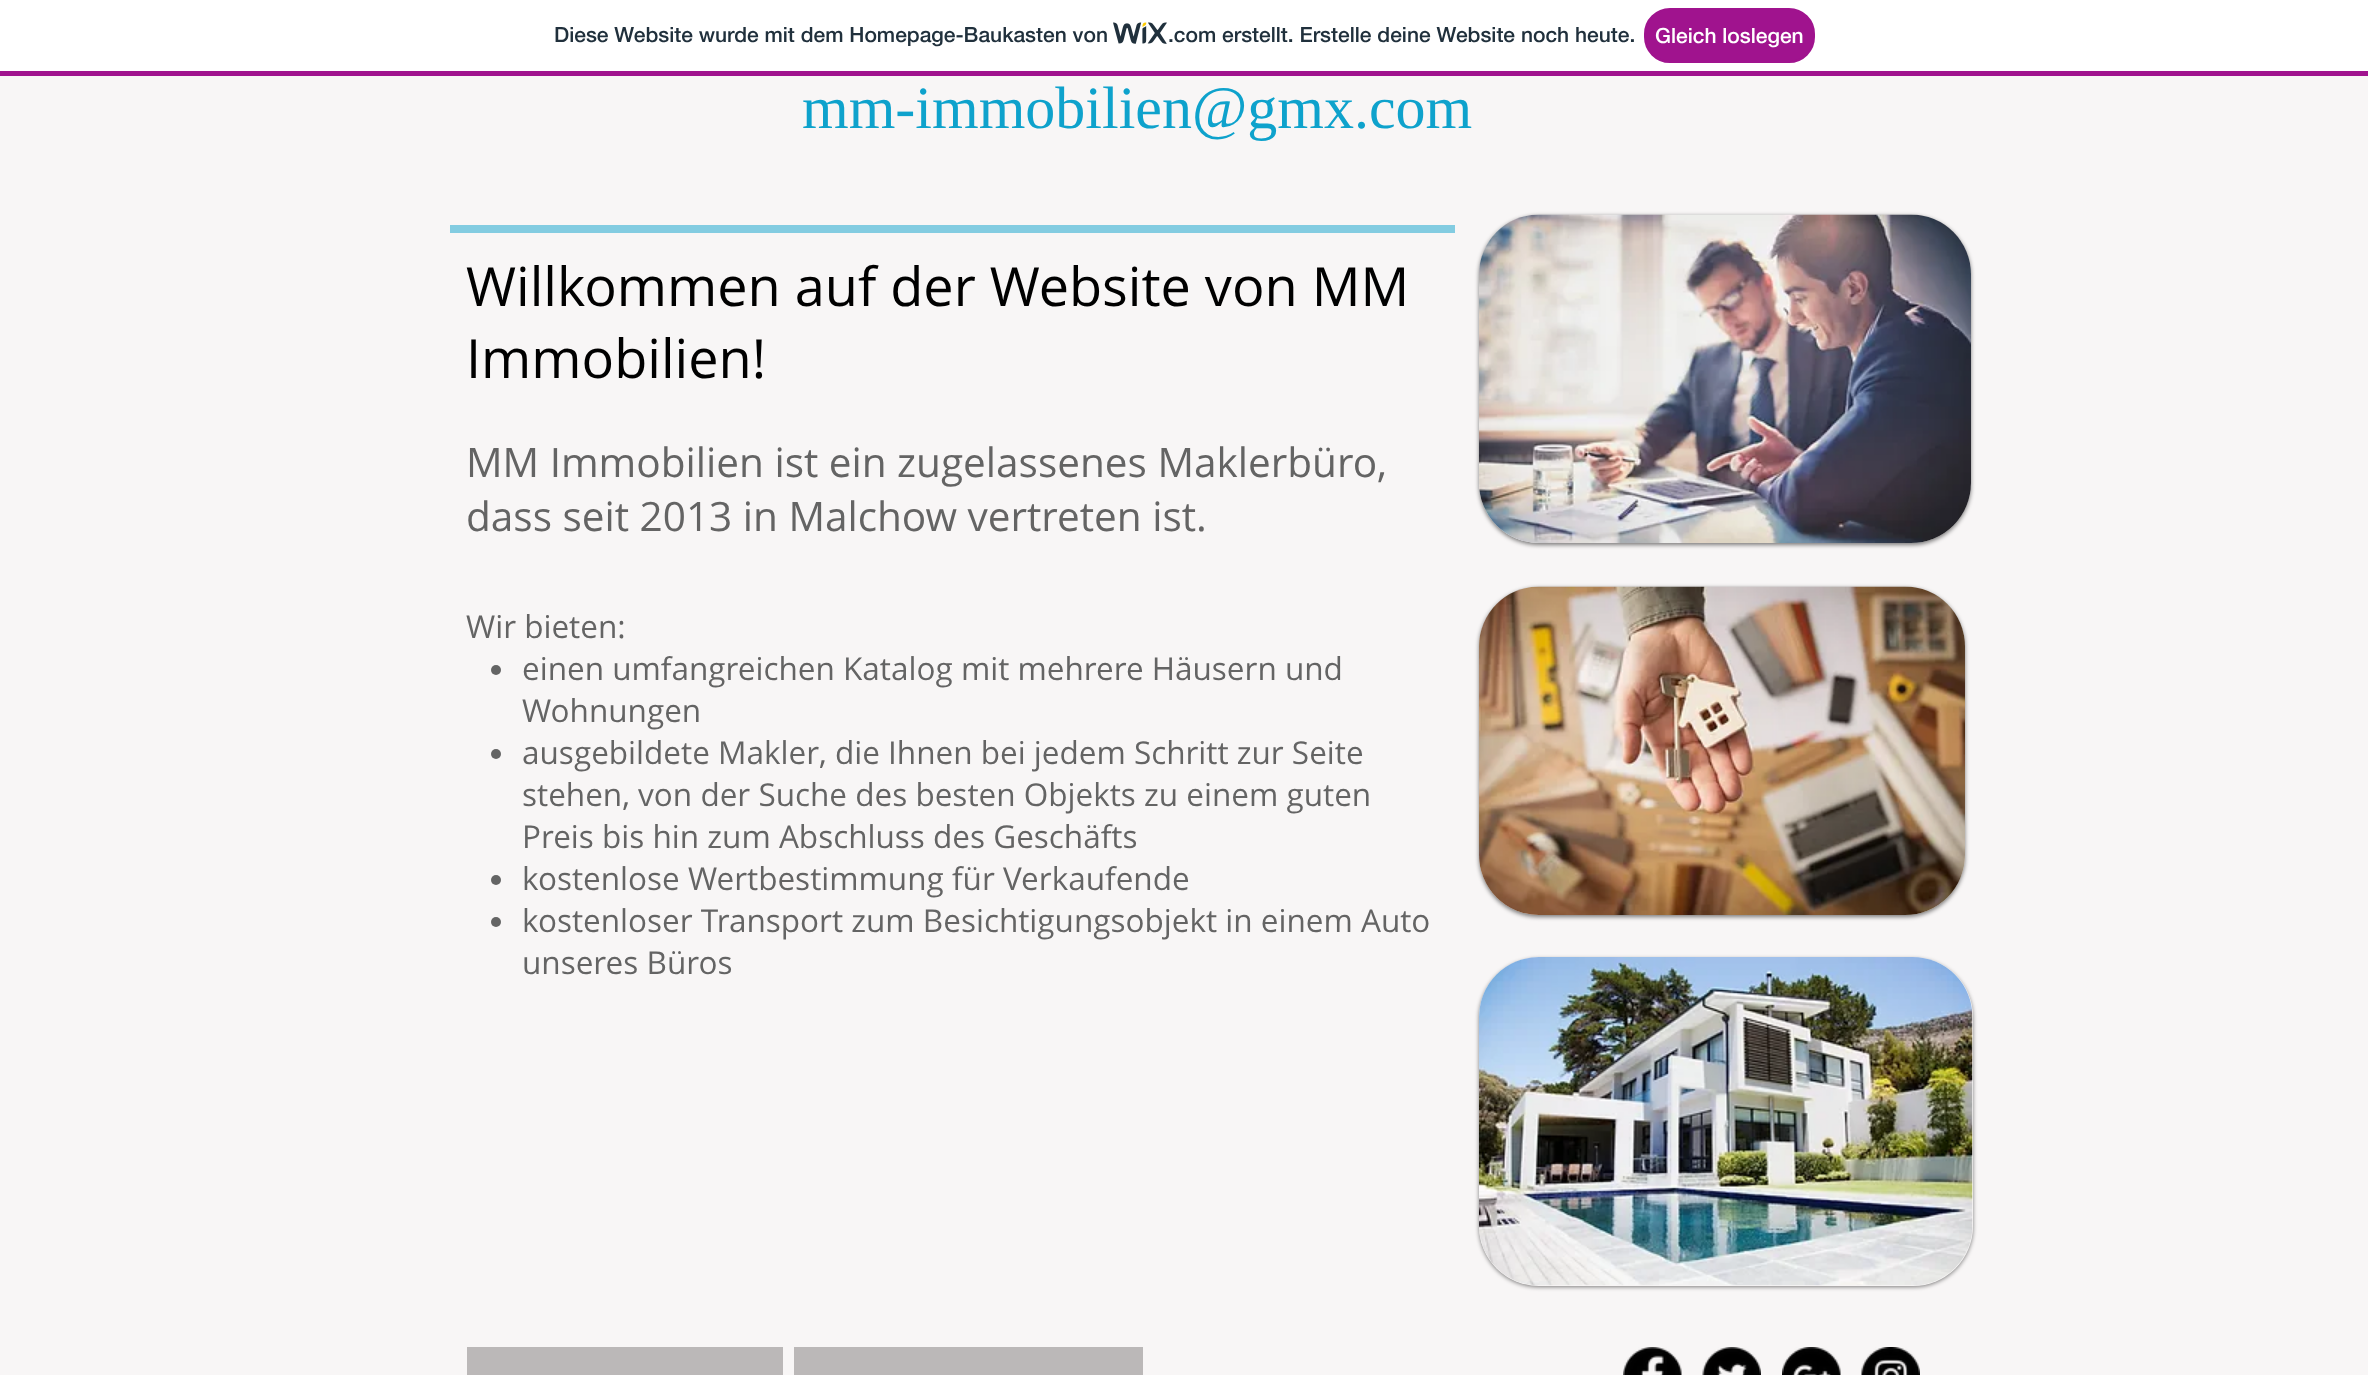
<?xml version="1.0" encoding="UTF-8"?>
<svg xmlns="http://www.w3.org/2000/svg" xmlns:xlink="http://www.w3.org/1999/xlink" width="2368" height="1375">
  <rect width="100%" height="100%" fill="#f8f6f6" />
  <rect width="2368" height="71" fill="#ffffff" />
  <rect y="71" width="2368" height="5" fill="#a0138e" />
  <image x="1113" y="22" width="54" height="22" xlink:href="image1.png" />
  <rect x="1645" y="9" width="169" height="53" rx="25" fill="#a0138e" stroke="#a0138e" stroke-width="2" />
  <rect x="450" y="225" width="1005" height="8" fill="#83cce1" />
  <circle cx="496" cy="670" r="5" fill="#646464" />
  <circle cx="496" cy="754" r="5" fill="#646464" />
  <circle cx="496" cy="880" r="5" fill="#646464" />
  <circle cx="496" cy="922" r="5" fill="#646464" />
  <rect x="1479" y="216" width="492" height="329" rx="60" fill="#000000" fill-opacity="0.5" filter="blur(2px)" />
  <rect x="1479" y="215" width="492" height="328" rx="60" fill="#f8f6f6" />
  <image x="1479" y="214" width="492" height="329" xlink:href="image2.png" />
  <rect x="1479" y="588" width="486" height="329" rx="60" fill="#000000" fill-opacity="0.5" filter="blur(2px)" />
  <rect x="1479" y="587" width="486" height="328" rx="60" fill="#f8f6f6" />
  <image x="1479" y="586" width="486" height="329" xlink:href="image3.png" />
  <rect x="1479" y="959" width="494" height="328" rx="60" fill="#000000" fill-opacity="0.5" filter="blur(2px)" />
  <rect x="1479" y="957" width="494" height="329" rx="60" fill="#f8f6f6" />
  <image x="1479" y="957" width="494" height="329" xlink:href="image4.png" />
  <rect x="467" y="1347" width="316" height="28" fill="#bbb8b8" />
  <rect x="794" y="1347" width="349" height="28" fill="#bbb8b8" />
  <image x="1623" y="1347" width="59" height="28" xlink:href="image5.png" />
  <image x="1702" y="1347" width="59" height="28" xlink:href="image6.png" />
  <image x="1782" y="1347" width="59" height="28" xlink:href="image7.png" />
  <image x="1861" y="1347" width="59" height="28" xlink:href="image8.png" />
  <text x="554" y="42" style="font-family: 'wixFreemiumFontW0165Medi'; font-size: 21px; font-weight: 500; fill: #20303c">Diese Website wurde mit dem Homepage-Baukasten von</text>
  <text x="1168" y="42" style="font-family: 'wixFreemiumFontW0165Medi'; font-size: 21px; font-weight: 500; fill: #20303c">.com erstellt. Erstelle deine Website noch heute.</text>
  <text x="1655" y="43" style="font-family: 'wixFreemiumFontW0165Medi'; font-size: 21px; font-weight: 500; fill: #ffffff">Gleich loslegen</text>
  <text x="802" y="128" style="font-family: Liberation Serif; font-size: 60px; fill: #0ea2cc">mm-immobilien@gmx.com</text>
  <text x="466" y="306" style="font-family: Open Sans; font-size: 54px; fill: #000000">Willkommen auf der Website von MM</text>
  <text x="466" y="378" style="font-family: Open Sans; font-size: 54px; fill: #000000">Immobilien!</text>
  <text x="466" y="477" style="font-family: Open Sans; font-size: 40.5px; fill: #646464">MM Immobilien ist ein zugelassenes Maklerbüro,</text>
  <text x="466" y="531" style="font-family: Open Sans; font-size: 40.5px; fill: #646464">dass seit 2013 in Malchow vertreten ist.</text>
  <text x="466" y="638" style="font-family: Open Sans; font-size: 31.5px; fill: #646464">Wir bieten:</text>
  <text x="522" y="680" style="font-family: Open Sans; font-size: 31.5px; fill: #646464">einen umfangreichen Katalog mit mehrere Häusern und</text>
  <text x="522" y="722" style="font-family: Open Sans; font-size: 31.5px; fill: #646464">Wohnungen</text>
  <text x="522" y="764" style="font-family: Open Sans; font-size: 31.5px; fill: #646464">ausgebildete Makler, die Ihnen bei jedem Schritt zur Seite</text>
  <text x="522" y="806" style="font-family: Open Sans; font-size: 31.5px; fill: #646464">stehen, von der Suche des besten Objekts zu einem guten</text>
  <text x="522" y="848" style="font-family: Open Sans; font-size: 31.5px; fill: #646464">Preis bis hin zum Abschluss des Geschäfts</text>
  <text x="522" y="890" style="font-family: Open Sans; font-size: 31.5px; fill: #646464">kostenlose Wertbestimmung für Verkaufende</text>
  <text x="522" y="932" style="font-family: Open Sans; font-size: 31.5px; fill: #646464">kostenloser Transport zum Besichtigungsobjekt in einem Auto</text>
  <text x="522" y="974" style="font-family: Open Sans; font-size: 31.5px; fill: #646464">unseres Büros</text>
</svg>
